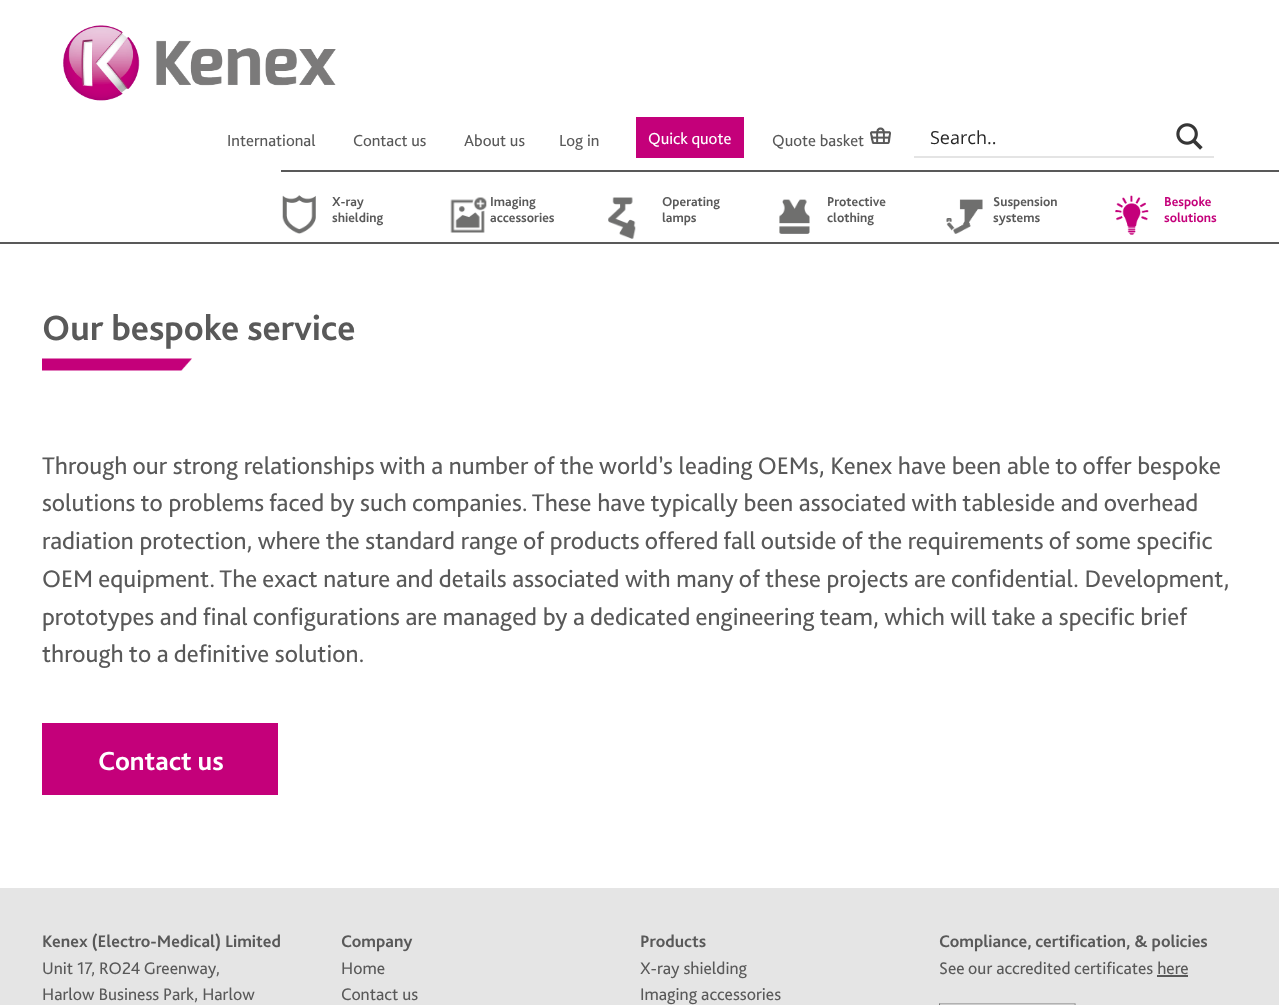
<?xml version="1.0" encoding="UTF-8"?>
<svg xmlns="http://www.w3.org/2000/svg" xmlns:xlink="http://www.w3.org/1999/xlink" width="1279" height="1005">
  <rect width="100%" height="100%" fill="#ffffff" />
  <rect y="242" width="1279" height="2" fill="#595959" />
  <image x="63" y="25" width="273" height="76" xlink:href="image1.png" />
  <rect x="636" y="117" width="108" height="41" fill="#c4007a" />
  <image x="870" y="127" width="21" height="17" xlink:href="image2.png" />
  <path d="M 914 156 v 2 h 300 v -42 v 40 z" fill="#e4e4e4" />
  <image x="1176" y="123" width="27" height="27" xlink:href="image3.png" />
  <rect x="281" y="170" width="998" height="2" fill="#595959" />
  <image x="282" y="195" width="34" height="39" xlink:href="image4.png" />
  <image x="450" y="197" width="37" height="36" xlink:href="image5.png" />
  <image x="608" y="197" width="28" height="42" xlink:href="image6.png" />
  <image x="779" y="199" width="31" height="35" xlink:href="image7.png" />
  <image x="946" y="199" width="37" height="35" xlink:href="image8.png" />
  <image x="1115" y="195" width="34" height="40" xlink:href="image9.png" />
  <image x="42" y="358" width="150" height="13" xlink:href="image10.png" />
  <rect x="42" y="723" width="236" height="72" fill="#c4007a" />
  <rect y="888" width="1279" height="117" fill="#e5e5e5" />
  <rect x="1157" y="975" width="31" height="2" fill="#595959" />
  <image x="939" y="1003" width="137" height="2" xlink:href="image11.png" />
  <text x="227" y="146" style="font-family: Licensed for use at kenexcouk; font-size: 16.75px; fill: #595959">International</text>
  <text x="353" y="146" style="font-family: Licensed for use at kenexcouk; font-size: 16.75px; fill: #595959">Contact us</text>
  <text x="464" y="146" style="font-family: Licensed for use at kenexcouk; font-size: 16.75px; fill: #595959">About us</text>
  <text x="559" y="146" style="font-family: Licensed for use at kenexcouk; font-size: 16.75px; fill: #595959">Log in</text>
  <text x="648" y="144" style="font-family: Licensed for use at kenexcouk; font-size: 16.75px; fill: #ffffff">Quick quote</text>
  <text x="772" y="146" style="font-family: Licensed for use at kenexcouk; font-size: 16.75px; fill: #595959">Quote basket</text>
  <text x="930" y="144" style="font-family: Open Sans; font-size: 18px; fill: #262626">Search..</text>
  <text x="332" y="206" style="font-family: Licensed for use at kenexcouk; font-size: 13.5px; font-weight: bold; fill: #595959">X-ray</text>
  <text x="332" y="222" style="font-family: Licensed for use at kenexcouk; font-size: 13.5px; font-weight: bold; fill: #595959">shielding</text>
  <text x="490" y="206" style="font-family: Licensed for use at kenexcouk; font-size: 13.5px; font-weight: bold; fill: #595959">Imaging</text>
  <text x="490" y="222" style="font-family: Licensed for use at kenexcouk; font-size: 13.5px; font-weight: bold; fill: #595959">accessories</text>
  <text x="662" y="206" style="font-family: Licensed for use at kenexcouk; font-size: 13.5px; font-weight: bold; fill: #595959">Operating</text>
  <text x="662" y="222" style="font-family: Licensed for use at kenexcouk; font-size: 13.5px; font-weight: bold; fill: #595959">lamps</text>
  <text x="827" y="206" style="font-family: Licensed for use at kenexcouk; font-size: 13.5px; font-weight: bold; fill: #595959">Protective</text>
  <text x="827" y="222" style="font-family: Licensed for use at kenexcouk; font-size: 13.5px; font-weight: bold; fill: #595959">clothing</text>
  <text x="993" y="206" style="font-family: Licensed for use at kenexcouk; font-size: 13.5px; font-weight: bold; fill: #595959">Suspension</text>
  <text x="993" y="222" style="font-family: Licensed for use at kenexcouk; font-size: 13.5px; font-weight: bold; fill: #595959">systems</text>
  <text x="1164" y="206" style="font-family: Licensed for use at kenexcouk; font-size: 13.5px; font-weight: bold; fill: #c4007a">Bespoke</text>
  <text x="1164" y="222" style="font-family: Licensed for use at kenexcouk; font-size: 13.5px; font-weight: bold; fill: #c4007a">solutions</text>
  <text x="42" y="340" style="font-family: Licensed for use at kenexcouk; font-size: 36.75px; font-weight: bold; fill: #595959">Our bespoke service</text>
  <text x="42" y="474" style="font-family: Licensed for use at kenexcouk; font-size: 25.2px; fill: #595959">Through our strong relationships with a number of the world’s leading OEMs, Kenex have been able to offer bespoke</text>
  <text x="42" y="511" style="font-family: Licensed for use at kenexcouk; font-size: 25.2px; fill: #595959">solutions to problems faced by such companies. These have typically been associated with tableside and overhead</text>
  <text x="42" y="549" style="font-family: Licensed for use at kenexcouk; font-size: 25.2px; fill: #595959">radiation protection, where the standard range of products offered fall outside of the requirements of some specific</text>
  <text x="42" y="587" style="font-family: Licensed for use at kenexcouk; font-size: 25.2px; fill: #595959">OEM equipment. The exact nature and details associated with many of these projects are confidential. Development,</text>
  <text x="42" y="625" style="font-family: Licensed for use at kenexcouk; font-size: 25.2px; fill: #595959">prototypes and final configurations are managed by a dedicated engineering team, which will take a specific brief</text>
  <text x="42" y="662" style="font-family: Licensed for use at kenexcouk; font-size: 25.2px; fill: #595959">through to a definitive solution.</text>
  <text x="98" y="770" style="font-family: Licensed for use at kenexcouk; font-size: 27.5px; font-weight: bold; fill: #ffffff">Contact us</text>
  <text x="42" y="947" style="font-family: Licensed for use at kenexcouk; font-size: 17.6px; font-weight: bold; fill: #595959">Kenex (Electro-Medical) Limited</text>
  <text x="42" y="974" style="font-family: Licensed for use at kenexcouk; font-size: 17.6px; fill: #595959">Unit 17, RO24 Greenway,</text>
  <text x="42" y="1000" style="font-family: Licensed for use at kenexcouk; font-size: 17.6px; fill: #595959">Harlow Business Park, Harlow</text>
  <text x="341" y="947" style="font-family: Licensed for use at kenexcouk; font-size: 17.6px; font-weight: bold; fill: #595959">Company</text>
  <text x="341" y="974" style="font-family: Licensed for use at kenexcouk; font-size: 17.6px; fill: #595959">Home</text>
  <text x="341" y="1000" style="font-family: Licensed for use at kenexcouk; font-size: 17.6px; fill: #595959">Contact us</text>
  <text x="640" y="947" style="font-family: Licensed for use at kenexcouk; font-size: 17.6px; font-weight: bold; fill: #595959">Products</text>
  <text x="640" y="974" style="font-family: Licensed for use at kenexcouk; font-size: 17.6px; fill: #595959">X-ray shielding</text>
  <text x="640" y="1000" style="font-family: Licensed for use at kenexcouk; font-size: 17.6px; fill: #595959">Imaging accessories</text>
  <text x="939" y="947" style="font-family: Licensed for use at kenexcouk; font-size: 17.6px; font-weight: bold; fill: #595959">Compliance, certification, &amp; policies</text>
  <text x="939" y="974" style="font-family: Licensed for use at kenexcouk; font-size: 17.6px; fill: #595959">See our accredited certificates here</text>
</svg>
